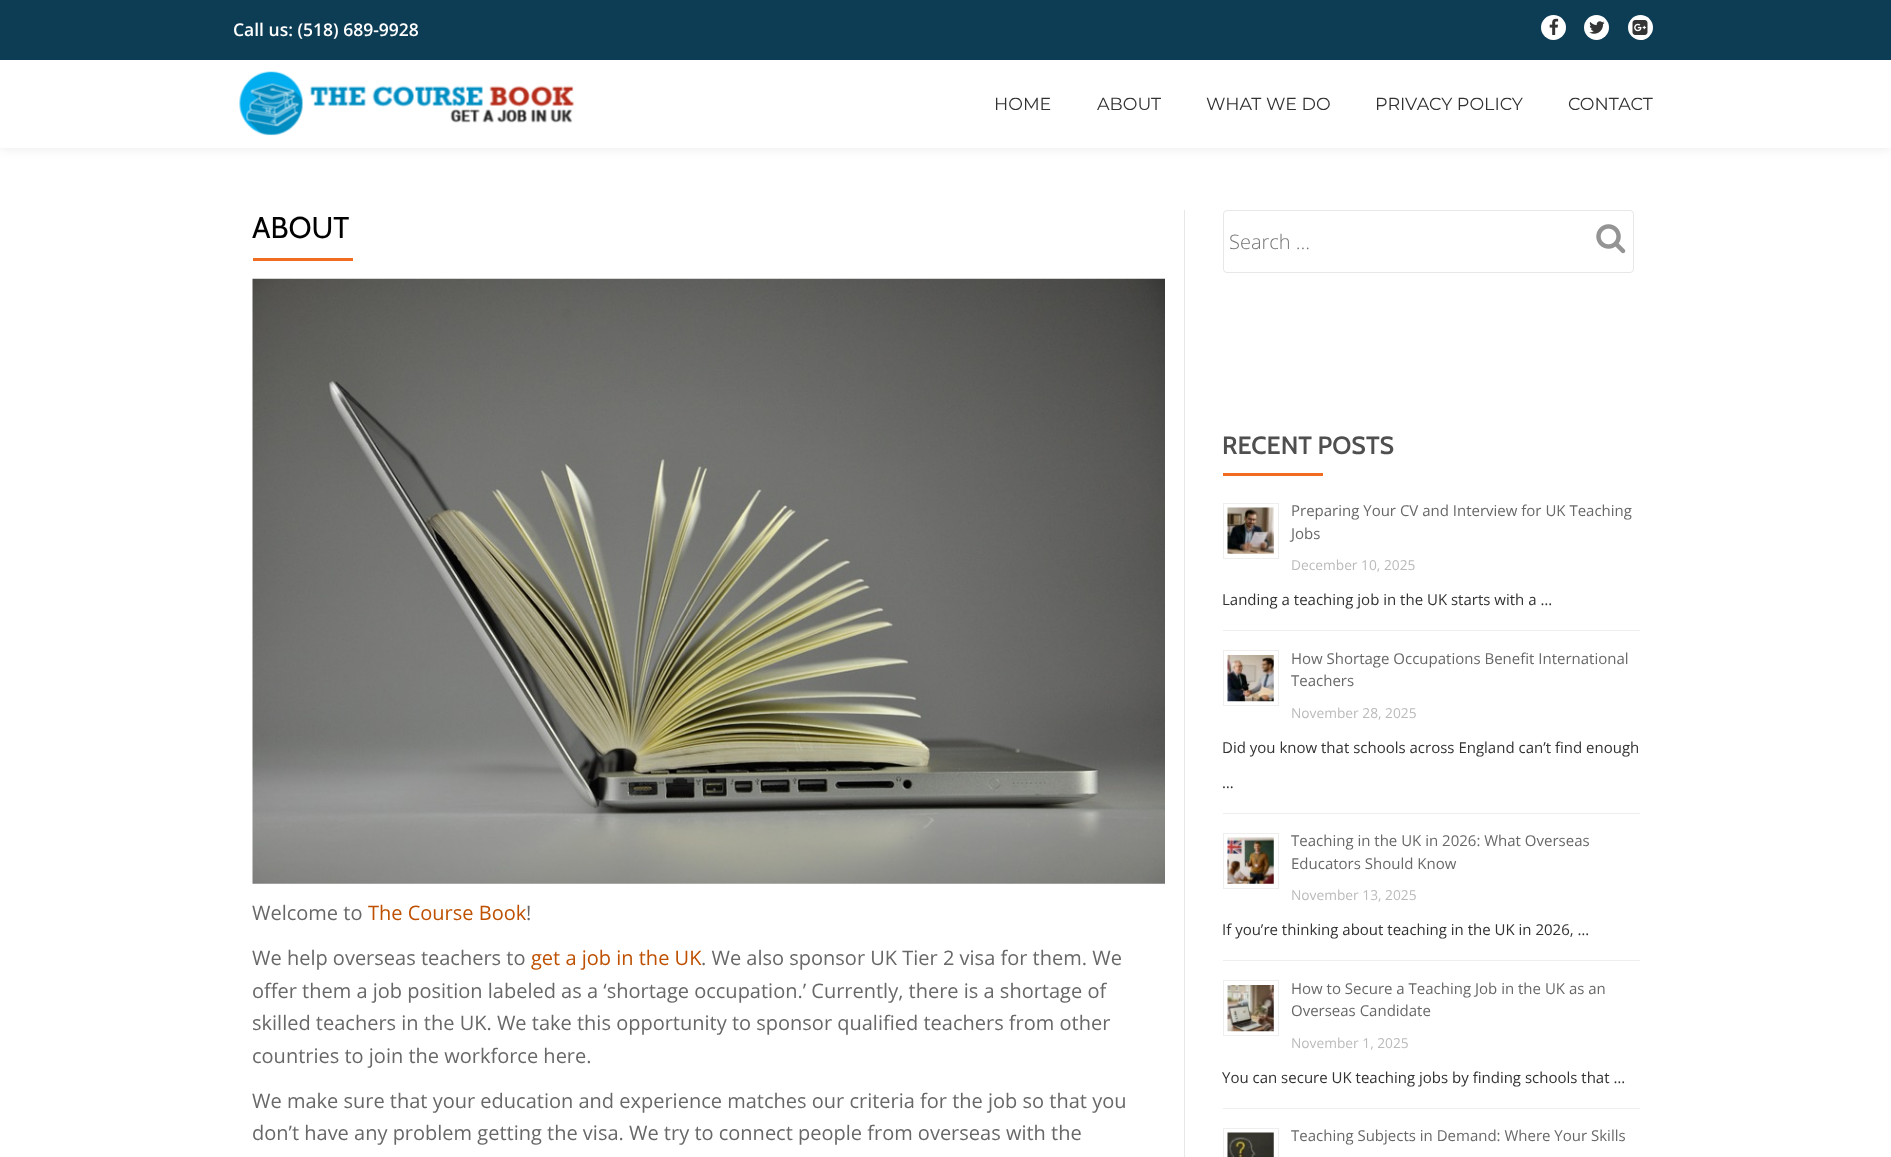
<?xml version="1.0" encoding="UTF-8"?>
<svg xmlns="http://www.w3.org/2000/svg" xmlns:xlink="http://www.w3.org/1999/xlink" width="1891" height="1157">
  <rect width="100%" height="100%" fill="#ffffff" />
  <rect y="3" width="1891" height="147" fill="#323232" fill-opacity="0.08" filter="blur(5px)" />
  <rect y="60" width="1891" height="88" fill="#ffffff" />
  <rect width="1891" height="60" fill="#0d3c55" />
  <circle cx="1553.5" cy="27.5" r="12.5" fill="#ffffff" />
  <image x="1549" y="18" width="10" height="17" xlink:href="image1.png" />
  <circle cx="1596.5" cy="27.5" r="12.5" fill="#ffffff" />
  <image x="1589" y="21" width="16" height="13" xlink:href="image2.png" />
  <circle cx="1640.5" cy="27.5" r="12.5" fill="#ffffff" />
  <image x="1632" y="20" width="16" height="15" xlink:href="image3.png" />
  <image x="239" y="71" width="336" height="65" xlink:href="image4.png" />
  <rect x="253" y="258" width="100" height="3" fill="#f16c20" />
  <image x="252" y="278" width="913" height="606" xlink:href="image5.png" />
  <rect x="1184" y="210" width="1" height="947" fill="#e7e7e7" />
  <rect x="1223.5" y="210.5" width="410" height="62" rx="3.5" fill="none" stroke="#e7e7e7" />
  <image x="1596" y="224" width="30" height="30" xlink:href="image6.png" />
  <rect x="1223" y="473" width="100" height="3" fill="#f16c20" />
  <rect x="1223" y="630" width="417" height="1" fill="#eeeeee" />
  <rect x="1223.5" y="503.5" width="55" height="55" fill="none" stroke="#eeeeee" />
  <image x="1227" y="507" width="47" height="47" xlink:href="image7.png" />
  <rect x="1223" y="813" width="417" height="1" fill="#eeeeee" />
  <rect x="1223.5" y="650.5" width="55" height="55" fill="none" stroke="#eeeeee" />
  <image x="1227" y="655" width="47" height="47" xlink:href="image8.png" />
  <rect x="1223" y="960" width="417" height="1" fill="#eeeeee" />
  <rect x="1223.5" y="833.5" width="55" height="55" fill="none" stroke="#eeeeee" />
  <image x="1227" y="837" width="47" height="47" xlink:href="image9.png" />
  <rect x="1223" y="1108" width="417" height="1" fill="#eeeeee" />
  <rect x="1223.5" y="980.5" width="55" height="55" fill="none" stroke="#eeeeee" />
  <image x="1227" y="985" width="47" height="47" xlink:href="image10.png" />
  <rect x="1223.5" y="1128.5" width="55" height="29" fill="none" stroke="#eeeeee" />
  <image x="1227" y="1132" width="47" height="25" xlink:href="image11.png" />
  <text x="233" y="36" style="font-family: Open Sans; font-size: 17.5px; font-weight: 600; fill: #ffffff">Call us: (518) 689-9928</text>
  <text x="994" y="110" style="font-family: Montserrat; font-size: 17.5px; fill: #313131">HOME</text>
  <text x="1097" y="110" style="font-family: Montserrat; font-size: 17.5px; fill: #313131">ABOUT</text>
  <text x="1206" y="110" style="font-family: Montserrat; font-size: 17.5px; fill: #313131">WHAT WE DO</text>
  <text x="1375" y="110" style="font-family: Montserrat; font-size: 17.5px; fill: #313131">PRIVACY POLICY</text>
  <text x="1568" y="110" style="font-family: Montserrat; font-size: 17.5px; fill: #313131">CONTACT</text>
  <text x="252" y="238" style="font-family: Cabin; font-size: 30px; fill: #000000">ABOUT</text>
  <text x="252" y="920" style="font-family: Open Sans; font-size: 20px; fill: #686868">Welcome to</text>
  <text x="368" y="920" style="font-family: Open Sans; font-size: 20px; fill: #be5000">The Course Book</text>
  <text x="526" y="920" style="font-family: Open Sans; font-size: 20px; fill: #686868">!</text>
  <text x="252" y="965" style="font-family: Open Sans; font-size: 20px; fill: #686868">We help overseas teachers to</text>
  <text x="531" y="965" style="font-family: Open Sans; font-size: 20px; fill: #be5000">get a job in the UK</text>
  <text x="701" y="965" style="font-family: Open Sans; font-size: 20px; fill: #686868">. We also sponsor UK Tier 2 visa for them. We</text>
  <text x="252" y="998" style="font-family: Open Sans; font-size: 20px; fill: #686868">offer them a job position labeled as a ‘shortage occupation.’ Currently, there is a shortage of</text>
  <text x="252" y="1030" style="font-family: Open Sans; font-size: 20px; fill: #686868">skilled teachers in the UK. We take this opportunity to sponsor qualified teachers from other</text>
  <text x="252" y="1063" style="font-family: Open Sans; font-size: 20px; fill: #686868">countries to join the workforce here.</text>
  <text x="252" y="1108" style="font-family: Open Sans; font-size: 20px; fill: #686868">We make sure that your education and experience matches our criteria for the job so that you</text>
  <text x="252" y="1140" style="font-family: Open Sans; font-size: 20px; fill: #686868">don’t have any problem getting the visa. We try to connect people from overseas with the</text>
  <text x="1229" y="249" style="font-family: Open Sans; font-size: 20px; font-weight: 300; fill: #757575">Search …</text>
  <text x="1222" y="454" style="font-family: Cabin; font-size: 25px; font-weight: 600; fill: #4f4f4f">RECENT POSTS</text>
  <text x="1291" y="516" style="font-family: Open Sans; font-size: 15px; fill: #686868">Preparing Your CV and Interview for UK Teaching</text>
  <text x="1291" y="539" style="font-family: Open Sans; font-size: 15px; fill: #686868">Jobs</text>
  <text x="1291" y="570" style="font-family: Open Sans; font-size: 13.75px; fill: #bbbbbb">December 10, 2025</text>
  <text x="1222" y="605" style="font-family: Open Sans; font-size: 15px; fill: #313131">Landing a teaching job in the UK starts with a …</text>
  <text x="1291" y="664" style="font-family: Open Sans; font-size: 15px; fill: #686868">How Shortage Occupations Benefit International</text>
  <text x="1291" y="686" style="font-family: Open Sans; font-size: 15px; fill: #686868">Teachers</text>
  <text x="1291" y="718" style="font-family: Open Sans; font-size: 13.75px; fill: #bbbbbb">November 28, 2025</text>
  <text x="1222" y="753" style="font-family: Open Sans; font-size: 15px; fill: #313131">Did you know that schools across England can’t find enough</text>
  <text x="1222" y="788" style="font-family: Open Sans; font-size: 15px; fill: #313131">…</text>
  <text x="1291" y="846" style="font-family: Open Sans; font-size: 15px; fill: #686868">Teaching in the UK in 2026: What Overseas</text>
  <text x="1291" y="869" style="font-family: Open Sans; font-size: 15px; fill: #686868">Educators Should Know</text>
  <text x="1291" y="900" style="font-family: Open Sans; font-size: 13.75px; fill: #bbbbbb">November 13, 2025</text>
  <text x="1222" y="935" style="font-family: Open Sans; font-size: 15px; fill: #313131">If you’re thinking about teaching in the UK in 2026, …</text>
  <text x="1291" y="994" style="font-family: Open Sans; font-size: 15px; fill: #686868">How to Secure a Teaching Job in the UK as an</text>
  <text x="1291" y="1016" style="font-family: Open Sans; font-size: 15px; fill: #686868">Overseas Candidate</text>
  <text x="1291" y="1048" style="font-family: Open Sans; font-size: 13.75px; fill: #bbbbbb">November 1, 2025</text>
  <text x="1222" y="1083" style="font-family: Open Sans; font-size: 15px; fill: #313131">You can secure UK teaching jobs by finding schools that …</text>
  <text x="1291" y="1141" style="font-family: Open Sans; font-size: 15px; fill: #686868">Teaching Subjects in Demand: Where Your Skills</text>
</svg>
